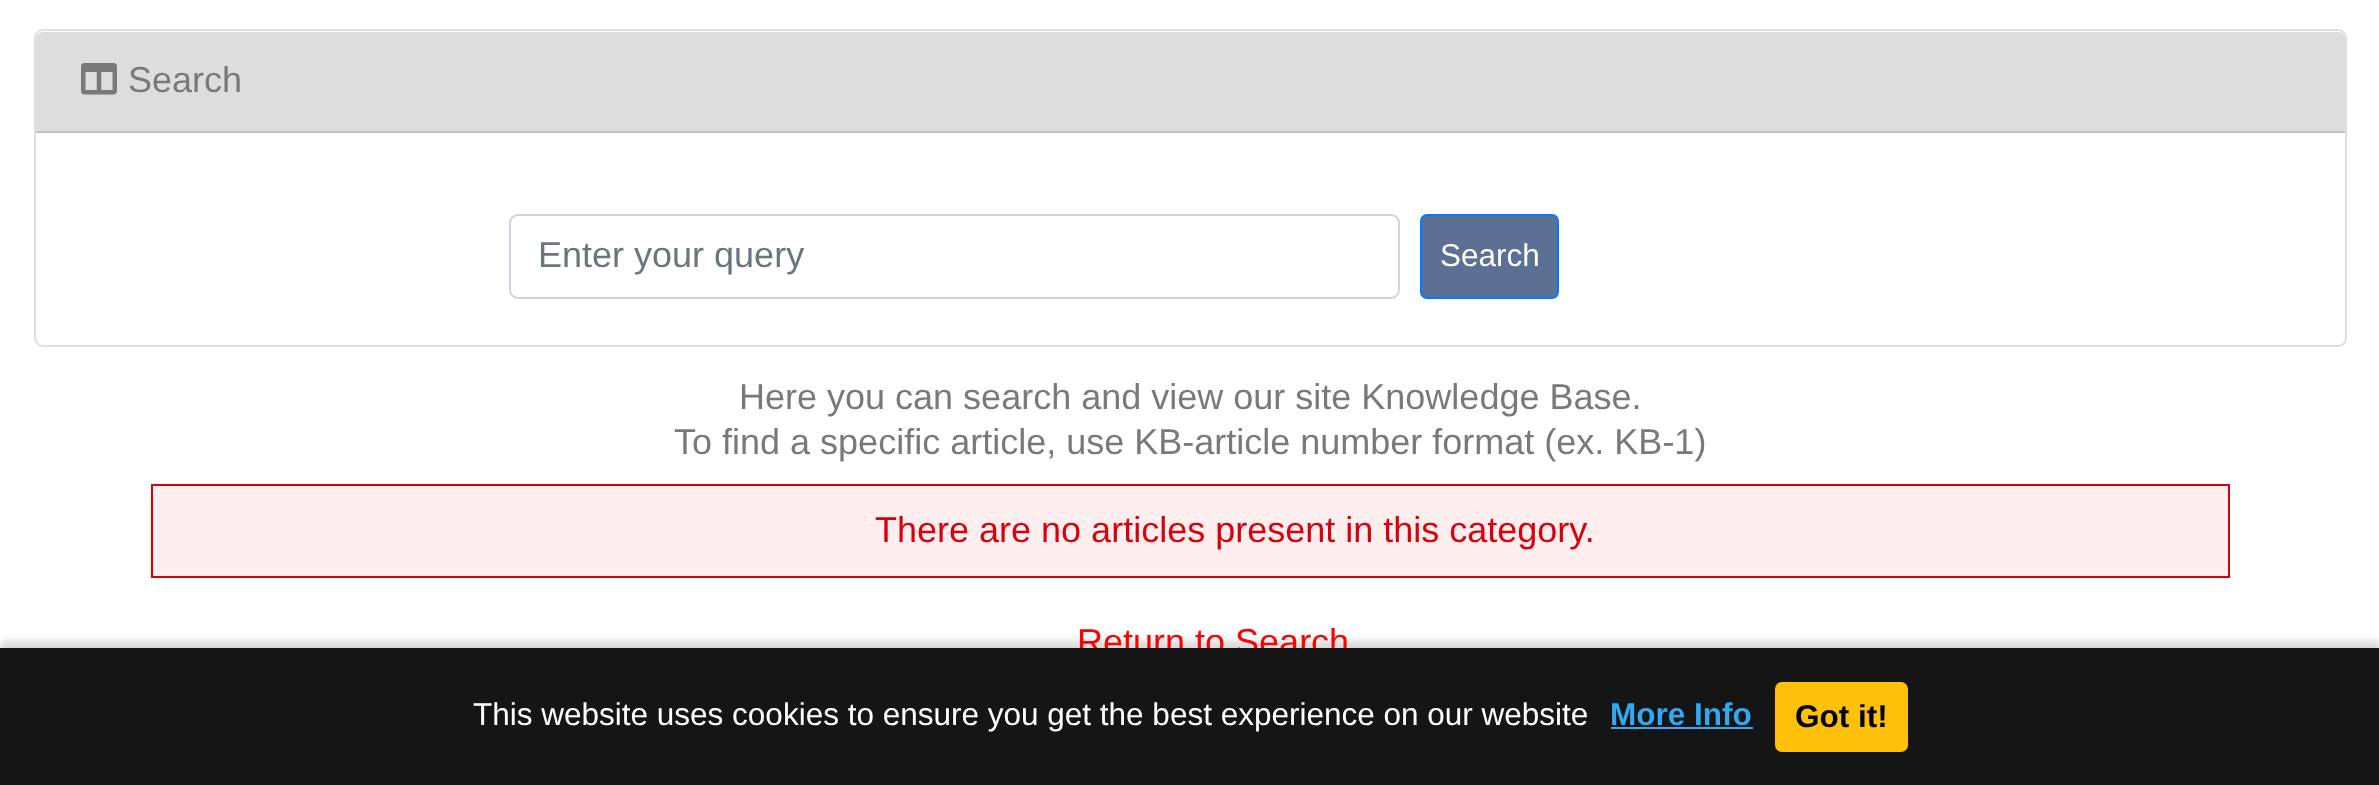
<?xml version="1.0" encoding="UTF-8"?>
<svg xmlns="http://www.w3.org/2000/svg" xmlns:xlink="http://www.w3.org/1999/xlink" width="2379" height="785">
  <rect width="100%" height="100%" fill="#ffffff" />
  <rect x="35" y="30" width="2311" height="316" rx="8" fill="none" stroke="#dfdfdf" stroke-width="2" />
  <path d="M 43 32 h 2295 c 4 0 7 3 7 7 v 94 h -2309 v -94 c 0 -4 3 -7 7 -7 z" fill="#dddddd" />
  <rect x="36" y="131" width="2309" height="2" fill="#c1c1c1" />
  <image x="81" y="63" width="36" height="32" xlink:href="image1.png" />
  <rect x="510" y="215" width="889" height="83" rx="8" fill="none" stroke="#ced4da" stroke-width="2" />
  <rect x="1421" y="215" width="137" height="83" rx="6" fill="#5c7094" stroke="#007bff" stroke-width="2" />
  <rect x="152" y="485" width="2077" height="92" fill="#ffeeee" stroke="#d8000c" stroke-width="2" />
  <rect y="641" width="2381" height="138" fill="#000000" fill-opacity="0.15" filter="blur(3.5px)" />
  <text x="128" y="92" style="font-family: Liberation Sans; font-size: 36px; fill: #797979">Search</text>
  <text x="538" y="267" style="font-family: Liberation Sans; font-size: 36px; fill: #6c757d">Enter your query</text>
  <text x="1440" y="266" style="font-family: Liberation Sans; font-size: 31.5px; fill: #ffffff">Search</text>
  <text x="739" y="409" style="font-family: Liberation Sans; font-size: 36px; fill: #797979">Here you can search and view our site Knowledge Base.</text>
  <text x="674" y="454" style="font-family: Liberation Sans; font-size: 36px; fill: #797979">To find a specific article, use KB-article number format (ex. KB-1)</text>
  <text x="875" y="542" style="font-family: Liberation Sans; font-size: 36px; fill: #d8000c">There are no articles present in this category.</text>
  <text x="1077" y="654" style="font-family: Liberation Sans; font-size: 36px; fill: #ff0000">Return to Search</text>
  <rect y="648" width="2379" height="137" fill="#151515" />
  <text x="473" y="725" style="font-family: Liberation Sans; font-size: 31.5px; fill: #ffffff">This website uses cookies to ensure you get the best experience on our website</text>
  <text x="1610" y="725" style="font-family: Liberation Sans; font-size: 31.5px; font-weight: bold; fill: #31a8f0">More Info</text>
  <rect x="1611" y="727" width="142" height="2" fill="#31a8f0" />
  <rect x="1776" y="683" width="131" height="68" rx="6" fill="#ffc107" stroke="#ffc107" stroke-width="2" />
  <text x="1795" y="727" style="font-family: Liberation Sans; font-size: 31.5px; font-weight: bold; fill: #000000">Got it!</text>
</svg>
